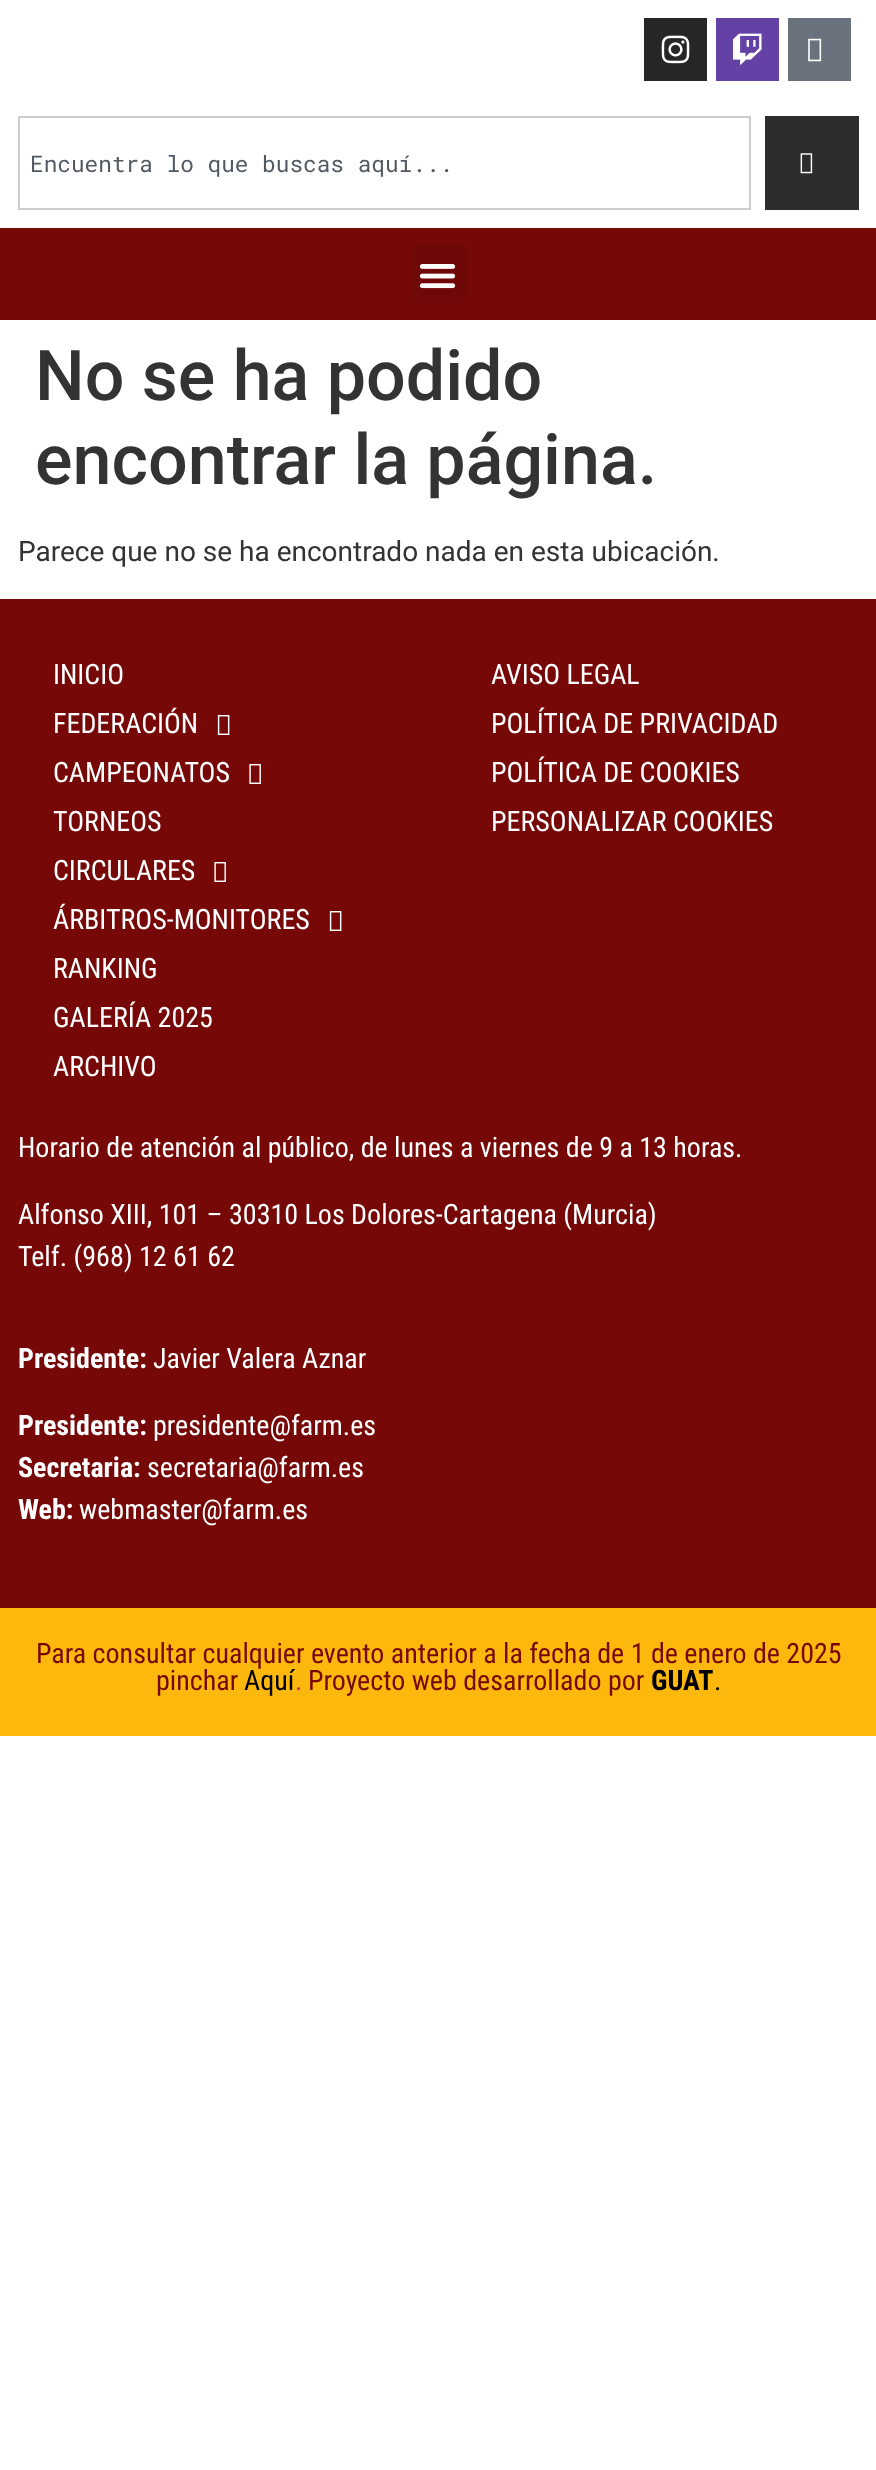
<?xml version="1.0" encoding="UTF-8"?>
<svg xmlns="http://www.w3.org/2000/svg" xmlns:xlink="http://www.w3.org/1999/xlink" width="876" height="2470">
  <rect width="100%" height="100%" fill="#ffffff" />
  <rect x="644" y="18" width="63" height="63" fill="#262626" />
  <image x="661" y="35" width="29" height="29" xlink:href="image1.png" />
  <rect x="716" y="18" width="63" height="63" fill="#6441a5" />
  <image x="732" y="33" width="30" height="32" xlink:href="image2.png" />
  <rect x="788" y="18" width="63" height="63" fill="#69727d" />
  <image x="808" y="38" width="14" height="24" xlink:href="image3.png" />
  <rect x="19" y="117" width="731" height="92" fill="none" stroke="#cdcdcd" stroke-width="2" />
  <rect x="765" y="116" width="94" height="94" fill="#2d2d2d" />
  <image x="800" y="153" width="13" height="21" xlink:href="image4.png" />
  <rect y="228" width="876" height="92" fill="#760807" />
  <rect x="410" y="245" width="57" height="58" rx="5" fill="#700807" />
  <image x="419" y="264" width="37" height="25" xlink:href="image5.png" />
  <rect y="599" width="876" height="1009" fill="#760807" />
  <image x="217" y="715" width="13" height="20" xlink:href="image6.png" />
  <image x="249" y="764" width="12" height="20" xlink:href="image7.png" />
  <image x="214" y="862" width="12" height="20" xlink:href="image7.png" />
  <image x="329" y="911" width="13" height="20" xlink:href="image6.png" />
  <rect y="1608" width="876" height="128" fill="#fcb80c" />
  <text x="30" y="172" style="font-family: Roboto Mono; font-size: 22.75px; fill: #515962">Encuentra lo que buscas aquí...</text>
  <text x="35" y="400" style="font-family: Roboto; font-size: 70px; font-weight: 500; fill: #333333">No se ha podido</text>
  <text x="35" y="484" style="font-family: Roboto; font-size: 70px; font-weight: 500; fill: #333333">encontrar la página.</text>
  <text x="18" y="561" style="font-family: Roboto; font-size: 28px; fill: #333333">Parece que no se ha encontrado nada en esta ubicación.</text>
  <text x="53" y="684" style="font-family: Roboto Condensed; font-size: 28px; fill: #ffffff">INICIO</text>
  <text x="53" y="733" style="font-family: Roboto Condensed; font-size: 28px; fill: #ffffff">FEDERACIÓN</text>
  <text x="53" y="782" style="font-family: Roboto Condensed; font-size: 28px; fill: #ffffff">CAMPEONATOS</text>
  <text x="53" y="831" style="font-family: Roboto Condensed; font-size: 28px; fill: #ffffff">TORNEOS</text>
  <text x="53" y="880" style="font-family: Roboto Condensed; font-size: 28px; fill: #ffffff">CIRCULARES</text>
  <text x="53" y="929" style="font-family: Roboto Condensed; font-size: 28px; fill: #ffffff">ÁRBITROS-MONITORES</text>
  <text x="53" y="978" style="font-family: Roboto Condensed; font-size: 28px; fill: #ffffff">RANKING</text>
  <text x="53" y="1027" style="font-family: Roboto Condensed; font-size: 28px; fill: #ffffff">GALERÍA 2025</text>
  <text x="53" y="1076" style="font-family: Roboto Condensed; font-size: 28px; fill: #ffffff">ARCHIVO</text>
  <text x="491" y="684" style="font-family: Roboto Condensed; font-size: 28px; fill: #ffffff">AVISO LEGAL</text>
  <text x="491" y="733" style="font-family: Roboto Condensed; font-size: 28px; fill: #ffffff">POLÍTICA DE PRIVACIDAD</text>
  <text x="491" y="782" style="font-family: Roboto Condensed; font-size: 28px; fill: #ffffff">POLÍTICA DE COOKIES</text>
  <text x="491" y="831" style="font-family: Roboto Condensed; font-size: 28px; fill: #ffffff">PERSONALIZAR COOKIES</text>
  <text x="18" y="1157" style="font-family: Roboto Condensed; font-size: 28px; fill: #ffffff">Horario de atención al público, de lunes a viernes de 9 a 13 horas.</text>
  <text x="18" y="1224" style="font-family: Roboto Condensed; font-size: 28px; fill: #ffffff">Alfonso XIII, 101 – 30310 Los Dolores-Cartagena (Murcia)</text>
  <text x="18" y="1266" style="font-family: Roboto Condensed; font-size: 28px; fill: #ffffff">Telf. (968) 12 61 62</text>
  <text x="18" y="1368" style="font-family: Roboto Condensed; font-size: 28px; font-weight: bold; fill: #ffffff">Presidente:</text>
  <text x="153" y="1368" style="font-family: Roboto Condensed; font-size: 28px; fill: #ffffff">Javier Valera Aznar</text>
  <text x="18" y="1435" style="font-family: Roboto Condensed; font-size: 28px; font-weight: bold; fill: #ffffff">Presidente:</text>
  <text x="153" y="1435" style="font-family: Roboto Condensed; font-size: 28px; fill: #ffffff">presidente@farm.es</text>
  <text x="18" y="1477" style="font-family: Roboto Condensed; font-size: 28px; font-weight: bold; fill: #ffffff">Secretaria:</text>
  <text x="147" y="1477" style="font-family: Roboto Condensed; font-size: 28px; fill: #ffffff">secretaria@farm.es</text>
  <text x="18" y="1519" style="font-family: Roboto Condensed; font-size: 28px; font-weight: bold; fill: #ffffff">Web:</text>
  <text x="79" y="1519" style="font-family: Roboto Condensed; font-size: 28px; fill: #ffffff">webmaster@farm.es</text>
  <text x="36" y="1663" style="font-family: Roboto Condensed; font-size: 28px; fill: #760807">Para consultar cualquier evento anterior a la fecha de 1 de enero de 2025</text>
  <text x="156" y="1690" style="font-family: Roboto Condensed; font-size: 28px; fill: #760807">pinchar</text>
  <text x="244" y="1690" style="font-family: Roboto Condensed; font-size: 28px; fill: #000000">Aquí</text>
  <text x="295" y="1690" style="font-family: Roboto Condensed; font-size: 28px; fill: #cc3366">.</text>
  <text x="308" y="1690" style="font-family: Roboto Condensed; font-size: 28px; fill: #760807">Proyecto web desarrollado por</text>
  <text x="651" y="1690" style="font-family: Roboto Condensed; font-size: 28px; font-weight: bold; fill: #000000">GUAT</text>
  <text x="714" y="1690" style="font-family: Roboto Condensed; font-size: 28px; fill: #000000">.</text>
</svg>
